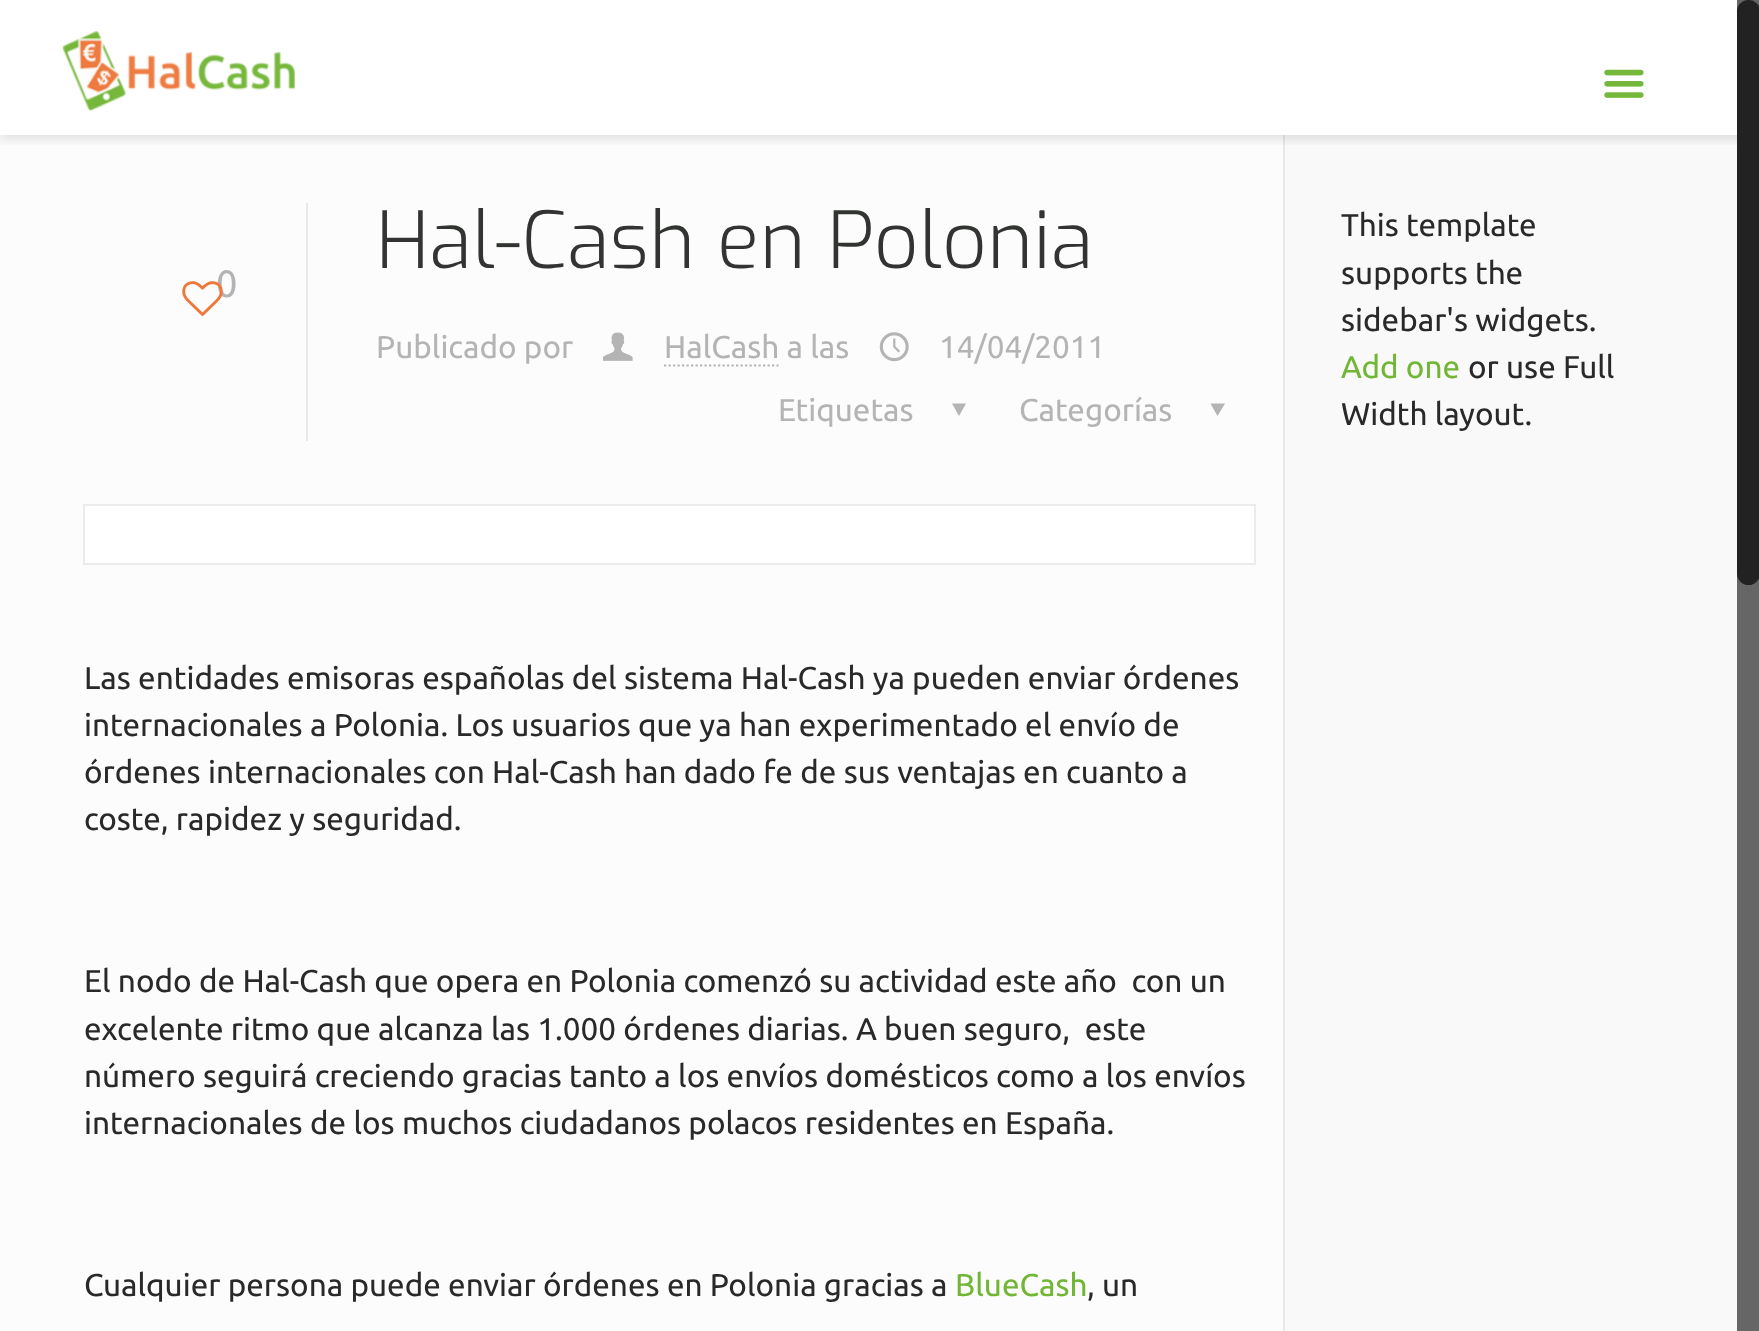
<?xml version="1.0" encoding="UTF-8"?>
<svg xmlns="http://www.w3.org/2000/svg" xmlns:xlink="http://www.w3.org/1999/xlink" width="1759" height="1331">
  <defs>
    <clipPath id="clip1"><rect x="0" y="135" width="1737" height="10" /></clipPath>
  </defs>
  <rect width="100%" height="100%" fill="#fcfcfc" />
  <rect x="1285" y="135" width="452" height="1196" fill="#f9f9f9" />
  <rect x="1283" y="135" width="2" height="1196" fill="#e8e8e8" />
  <g clip-path="url(#clip1)">
    <rect y="5" width="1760" height="135" fill="#000000" fill-opacity="0.1" filter="blur(5.5px)" />
  </g>
  <rect width="1737" height="135" fill="#ffffff" fill-opacity="0.97" />
  <image x="62" y="31" width="233" height="80" xlink:href="image1.png" />
  <image x="1604" y="69" width="40" height="29" xlink:href="image2.png" />
  <rect x="306" y="203" width="2" height="238" fill="#e8e8e8" />
  <image x="603" y="332" width="30" height="29" xlink:href="image4.png" />
  <path d="M 664 365.5 h 114.5" fill="none" stroke="#b4b4b4" stroke-width="2.2" stroke-dasharray="2.25 2.25" />
  <image x="879" y="332" width="30" height="30" xlink:href="image5.png" />
  <path d="M 966 403.5 l -7 12.5 l -7 -12.5 z" fill="#b4b4b4" />
  <path d="M 1225 403.5 l -7.5 12.5 l -7 -12.5 z" fill="#b4b4b4" />
  <rect x="84" y="505" width="1171" height="59" fill="#ffffff" stroke="#ebebeb" stroke-width="2" />
  <rect x="1737" width="22" height="1331" fill="#666666" />
  <rect x="1737" width="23" height="585" rx="11.5" fill="#222222" />
  <text x="216" y="297" style="font-family: Ubuntu; font-size: 38px; fill: #b4b4b4">0</text>
  <image x="182" y="281" width="41" height="35" xlink:href="image3.png" />
  <text x="376" y="268" style="font-family: Exo; font-size: 78.75px; font-weight: 300; fill: #323432">Hal-Cash en Polonia</text>
  <text x="376" y="358" style="font-family: Ubuntu; font-size: 31.5px; fill: #b4b4b4">Publicado por</text>
  <text x="664" y="358" style="font-family: Ubuntu; font-size: 31.5px; fill: #b4b4b4">HalCash a las</text>
  <text x="939" y="358" style="font-family: Ubuntu; font-size: 31.5px; fill: #b4b4b4">14/04/2011</text>
  <text x="778" y="421" style="font-family: Ubuntu; font-size: 31.5px; fill: #b4b4b4">Etiquetas</text>
  <text x="1019" y="421" style="font-family: Ubuntu; font-size: 31.5px; fill: #b4b4b4">Categorías</text>
  <text x="84" y="689" style="font-family: Ubuntu; font-size: 31.5px; fill: #292929">Las entidades emisoras españolas del sistema Hal-Cash ya pueden enviar órdenes</text>
  <text x="84" y="736" style="font-family: Ubuntu; font-size: 31.5px; fill: #292929">internacionales a Polonia. Los usuarios que ya han experimentado el envío de</text>
  <text x="84" y="783" style="font-family: Ubuntu; font-size: 31.5px; fill: #292929">órdenes internacionales con Hal-Cash han dado fe de sus ventajas en cuanto a</text>
  <text x="84" y="830" style="font-family: Ubuntu; font-size: 31.5px; fill: #292929">coste, rapidez y seguridad.</text>
  <text x="84" y="992" style="font-family: Ubuntu; font-size: 31.5px; fill: #292929" xml:space="preserve">El nodo de Hal-Cash que opera en Polonia comenzó su actividad este año  con un</text>
  <text x="84" y="1040" style="font-family: Ubuntu; font-size: 31.5px; fill: #292929" xml:space="preserve">excelente ritmo que alcanza las 1.000 órdenes diarias. A buen seguro,  este</text>
  <text x="84" y="1087" style="font-family: Ubuntu; font-size: 31.5px; fill: #292929">número seguirá creciendo gracias tanto a los envíos domésticos como a los envíos</text>
  <text x="84" y="1134" style="font-family: Ubuntu; font-size: 31.5px; fill: #292929">internacionales de los muchos ciudadanos polacos residentes en España.</text>
  <text x="84" y="1296" style="font-family: Ubuntu; font-size: 31.5px; fill: #292929">Cualquier persona puede enviar órdenes en Polonia gracias a</text>
  <text x="955" y="1296" style="font-family: Ubuntu; font-size: 31.5px; fill: #72b635">BlueCash</text>
  <text x="1087" y="1296" style="font-family: Ubuntu; font-size: 31.5px; fill: #292929">, un</text>
  <text x="1341" y="236" style="font-family: Ubuntu; font-size: 31.5px; fill: #292929">This template</text>
  <text x="1341" y="284" style="font-family: Ubuntu; font-size: 31.5px; fill: #292929">supports the</text>
  <text x="1341" y="331" style="font-family: Ubuntu; font-size: 31.5px; fill: #292929">sidebar's widgets.</text>
  <text x="1341" y="378" style="font-family: Ubuntu; font-size: 31.5px; fill: #72b635">Add one</text>
  <text x="1468" y="378" style="font-family: Ubuntu; font-size: 31.5px; fill: #292929">or use Full</text>
  <text x="1341" y="425" style="font-family: Ubuntu; font-size: 31.5px; fill: #292929">Width layout.</text>
</svg>
